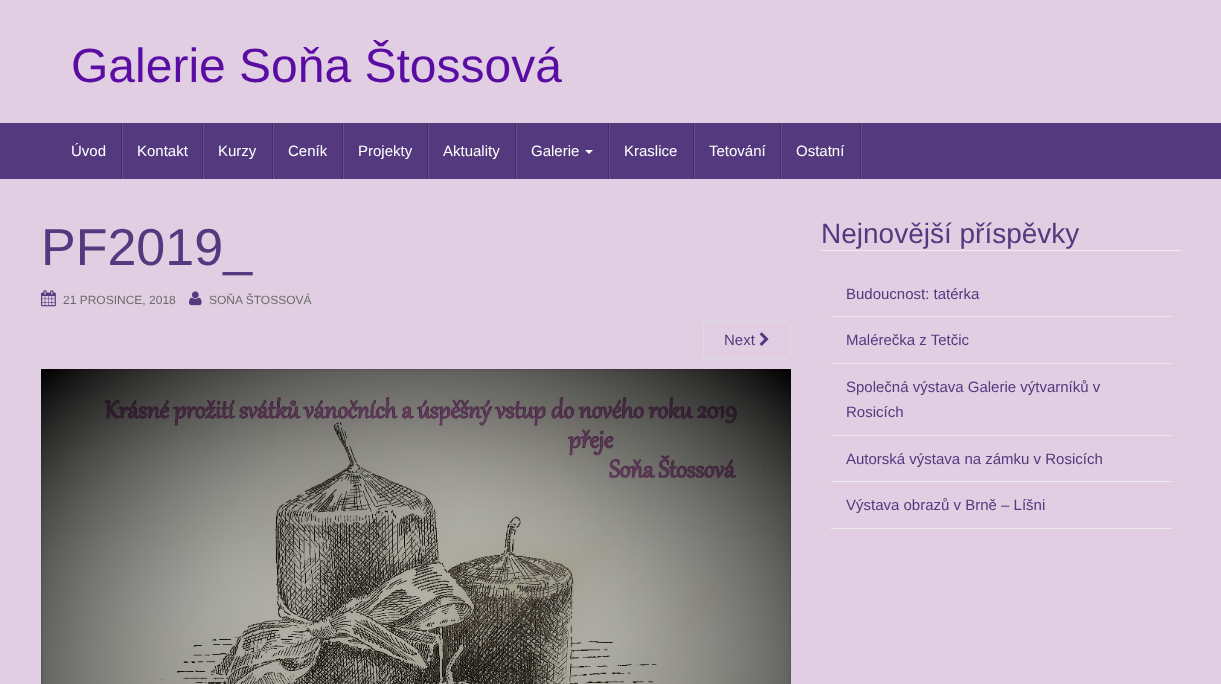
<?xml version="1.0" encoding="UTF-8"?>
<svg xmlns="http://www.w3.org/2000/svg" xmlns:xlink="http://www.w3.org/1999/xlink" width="1221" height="684">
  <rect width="100%" height="100%" fill="#e2cee2" />
  <rect y="123" width="1221" height="56" fill="#54397e" />
  <rect x="122" y="123" width="1" height="56" fill="#654d8b" />
  <rect x="121" y="123" width="1" height="56" fill="#432e65" />
  <rect x="203" y="123" width="1" height="56" fill="#654d8b" />
  <rect x="202" y="123" width="1" height="56" fill="#432e65" />
  <rect x="273" y="123" width="1" height="56" fill="#654d8b" />
  <rect x="272" y="123" width="1" height="56" fill="#432e65" />
  <rect x="343" y="123" width="1" height="56" fill="#654d8b" />
  <rect x="342" y="123" width="1" height="56" fill="#432e65" />
  <rect x="428" y="123" width="1" height="56" fill="#654d8b" />
  <rect x="427" y="123" width="1" height="56" fill="#432e65" />
  <rect x="516" y="123" width="1" height="56" fill="#654d8b" />
  <rect x="515" y="123" width="1" height="56" fill="#432e65" />
  <rect x="609" y="123" width="1" height="56" fill="#654d8b" />
  <rect x="608" y="123" width="1" height="56" fill="#432e65" />
  <path d="M 585 150 h 8 l -4 4 z" fill="#ffffff" />
  <rect x="694" y="123" width="1" height="56" fill="#654d8b" />
  <rect x="693" y="123" width="1" height="56" fill="#432e65" />
  <rect x="781" y="123" width="1" height="56" fill="#654d8b" />
  <rect x="780" y="123" width="1" height="56" fill="#432e65" />
  <rect x="861" y="123" width="1" height="56" fill="#654d8b" />
  <rect x="860" y="123" width="1" height="56" fill="#432e65" />
  <image x="41" y="290" width="15" height="17" xlink:href="image1.png" />
  <image x="189" y="291" width="13" height="15" xlink:href="image2.png" />
  <rect x="703.5" y="321.5" width="87" height="37" rx="3.5" fill="none" stroke="#dddddd" />
  <image x="759" y="332" width="10" height="14" xlink:href="image3.png" />
  <image x="41" y="369" width="750" height="315" xlink:href="image4.png" />
  <rect x="821" y="250" width="360" height="1" fill="#eeeeee" />
  <rect x="831" y="316" width="340" height="1" fill="#eeeeee" />
  <rect x="831" y="363" width="340" height="1" fill="#eeeeee" />
  <rect x="831" y="435" width="340" height="1" fill="#eeeeee" />
  <rect x="831" y="481" width="340" height="1" fill="#eeeeee" />
  <rect x="831" y="528" width="340" height="1" fill="#eeeeee" />
  <text x="71" y="82" style="font-family: Liberation Sans; font-size: 48px; fill: #5a0da3">Galerie Soňa Štossová</text>
  <text x="71" y="156" style="font-family: Liberation Sans; font-size: 15px; fill: #ffffff">Úvod</text>
  <text x="137" y="156" style="font-family: Liberation Sans; font-size: 15px; fill: #ffffff">Kontakt</text>
  <text x="218" y="156" style="font-family: Liberation Sans; font-size: 15px; fill: #ffffff">Kurzy</text>
  <text x="288" y="156" style="font-family: Liberation Sans; font-size: 15px; fill: #ffffff">Ceník</text>
  <text x="358" y="156" style="font-family: Liberation Sans; font-size: 15px; fill: #ffffff">Projekty</text>
  <text x="443" y="156" style="font-family: Liberation Sans; font-size: 15px; fill: #ffffff">Aktuality</text>
  <text x="531" y="156" style="font-family: Liberation Sans; font-size: 15px; fill: #ffffff">Galerie</text>
  <text x="624" y="156" style="font-family: Liberation Sans; font-size: 15px; fill: #ffffff">Kraslice</text>
  <text x="709" y="156" style="font-family: Liberation Sans; font-size: 15px; fill: #ffffff">Tetování</text>
  <text x="796" y="156" style="font-family: Liberation Sans; font-size: 15px; fill: #ffffff">Ostatní</text>
  <text x="41" y="265" style="font-family: Liberation Sans; font-size: 52px; fill: #54397e">PF2019_</text>
  <text x="63" y="304" style="font-family: Liberation Sans; font-size: 12px; fill: #6b6b6b">21 PROSINCE, 2018</text>
  <text x="209" y="304" style="font-family: Liberation Sans; font-size: 12px; fill: #6b6b6b">SOŇA ŠTOSSOVÁ</text>
  <text x="724" y="345" style="font-family: Liberation Sans; font-size: 15px; fill: #54397e">Next</text>
  <text x="821" y="243" style="font-family: Liberation Sans; font-size: 28px; fill: #54397e">Nejnovější příspěvky</text>
  <text x="846" y="299" style="font-family: Liberation Sans; font-size: 15px; fill: #54397e">Budoucnost: tatérka</text>
  <text x="846" y="345" style="font-family: Liberation Sans; font-size: 15px; fill: #54397e">Malérečka z Tetčic</text>
  <text x="846" y="392" style="font-family: Liberation Sans; font-size: 15px; fill: #54397e">Společná výstava Galerie výtvarníků v</text>
  <text x="846" y="417" style="font-family: Liberation Sans; font-size: 15px; fill: #54397e">Rosicích</text>
  <text x="846" y="464" style="font-family: Liberation Sans; font-size: 15px; fill: #54397e">Autorská výstava na zámku v Rosicích</text>
  <text x="846" y="510" style="font-family: Liberation Sans; font-size: 15px; fill: #54397e">Výstava obrazů v Brně – Líšni</text>
</svg>
